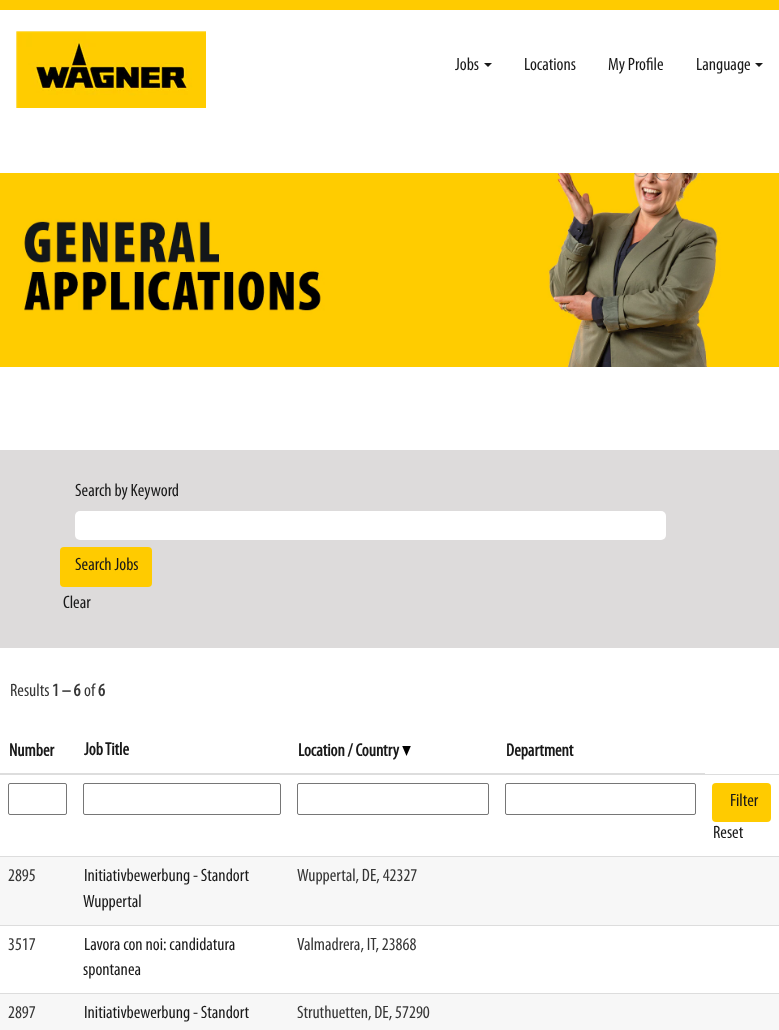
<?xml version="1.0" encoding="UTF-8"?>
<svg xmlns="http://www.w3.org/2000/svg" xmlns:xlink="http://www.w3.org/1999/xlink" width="779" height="1030">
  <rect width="100%" height="100%" fill="#ffffff" />
  <rect width="779" height="10" fill="#ffcb00" />
  <image x="16" y="31" width="190" height="77" xlink:href="image1.png" />
  <path d="M 484 63 h 8 l -4 4 z" fill="#191919" />
  <path d="M 755 63 h 8 l -4 4 z" fill="#191919" />
  <image x="0" y="173" width="779" height="194" xlink:href="image2.png" />
  <rect y="450" width="779" height="198" fill="#dddbdb" />
  <rect x="75" y="511" width="591" height="29" rx="5" fill="#ffffff" />
  <rect x="60" y="547" width="92" height="40" rx="4" fill="#ffcb00" />
  <image x="402" y="746" width="9" height="10" xlink:href="image3.png" />
  <rect x="703" y="774" width="76" height="1" fill="#dddddd" />
  <rect y="773" width="705" height="2" fill="#dddddd" />
  <rect x="8.5" y="783.5" width="58" height="31" rx="1.5" fill="none" stroke="#767676" />
  <rect x="83.5" y="783.5" width="197" height="31" rx="1.5" fill="none" stroke="#767676" />
  <rect x="297.5" y="783.5" width="191" height="31" rx="1.5" fill="none" stroke="#767676" />
  <rect x="505.5" y="783.5" width="190" height="31" rx="1.5" fill="none" stroke="#767676" />
  <rect x="712" y="783" width="59" height="39" rx="4" fill="#ffcb00" />
  <rect y="857" width="779" height="68" fill="#f7f7f7" />
  <rect y="856" width="779" height="1" fill="#dddddd" />
  <rect y="925" width="779" height="1" fill="#dddddd" />
  <rect y="994" width="779" height="36" fill="#f7f7f7" />
  <rect y="993" width="779" height="1" fill="#dddddd" />
  <text x="455" y="70" style="font-family: Myriad; font-size: 18px; fill: #191919">Jobs</text>
  <text x="524" y="70" style="font-family: Myriad; font-size: 18px; fill: #191919">Locations</text>
  <text x="608" y="70" style="font-family: Myriad; font-size: 18px; fill: #191919">My Profile</text>
  <text x="696" y="70" style="font-family: Myriad; font-size: 18px; fill: #191919">Language</text>
  <text x="75" y="496" style="font-family: Myriad; font-size: 18px; fill: #191919">Search by Keyword</text>
  <text x="75" y="570" style="font-family: Myriad; font-size: 18px; fill: #191919">Search Jobs</text>
  <text x="63" y="608" style="font-family: Myriad; font-size: 18px; fill: #191919">Clear</text>
  <text x="10" y="696" style="font-family: Myriad; font-size: 18px; fill: #363636">Results</text>
  <text x="52" y="696" style="font-family: Myriad; font-size: 18px; font-weight: bold; fill: #363636">1 – 6</text>
  <text x="84" y="696" style="font-family: Myriad; font-size: 18px; fill: #363636">of</text>
  <text x="98" y="696" style="font-family: Myriad; font-size: 18px; font-weight: bold; fill: #363636">6</text>
  <text x="9" y="756" style="font-family: Myriad; font-size: 18px; font-weight: bold; fill: #191919">Number</text>
  <text x="84" y="755" style="font-family: Myriad; font-size: 18px; font-weight: bold; fill: #191919">Job Title</text>
  <text x="298" y="756" style="font-family: Myriad; font-size: 18px; font-weight: bold; fill: #191919">Location / Country</text>
  <text x="506" y="756" style="font-family: Myriad; font-size: 18px; font-weight: bold; fill: #191919">Department</text>
  <text x="730" y="806" style="font-family: Myriad; font-size: 18px; fill: #191919">Filter</text>
  <text x="713" y="838" style="font-family: Myriad; font-size: 18px; fill: #191919">Reset</text>
  <text x="8" y="881" style="font-family: Myriad; font-size: 18px; fill: #363636">2895</text>
  <text x="84" y="881" style="font-family: Myriad; font-size: 18px; fill: #191919">Initiativbewerbung - Standort</text>
  <text x="83" y="907" style="font-family: Myriad; font-size: 18px; fill: #191919">Wuppertal</text>
  <text x="297" y="881" style="font-family: Myriad; font-size: 18px; fill: #363636">Wuppertal, DE, 42327</text>
  <text x="8" y="950" style="font-family: Myriad; font-size: 18px; fill: #363636">3517</text>
  <text x="84" y="950" style="font-family: Myriad; font-size: 18px; fill: #191919">Lavora con noi: candidatura</text>
  <text x="83" y="975" style="font-family: Myriad; font-size: 18px; fill: #191919">spontanea</text>
  <text x="297" y="950" style="font-family: Myriad; font-size: 18px; fill: #363636">Valmadrera, IT, 23868</text>
  <text x="8" y="1018" style="font-family: Myriad; font-size: 18px; fill: #363636">2897</text>
  <text x="84" y="1018" style="font-family: Myriad; font-size: 18px; fill: #191919">Initiativbewerbung - Standort</text>
  <text x="297" y="1018" style="font-family: Myriad; font-size: 18px; fill: #363636">Struthuetten, DE, 57290</text>
</svg>
